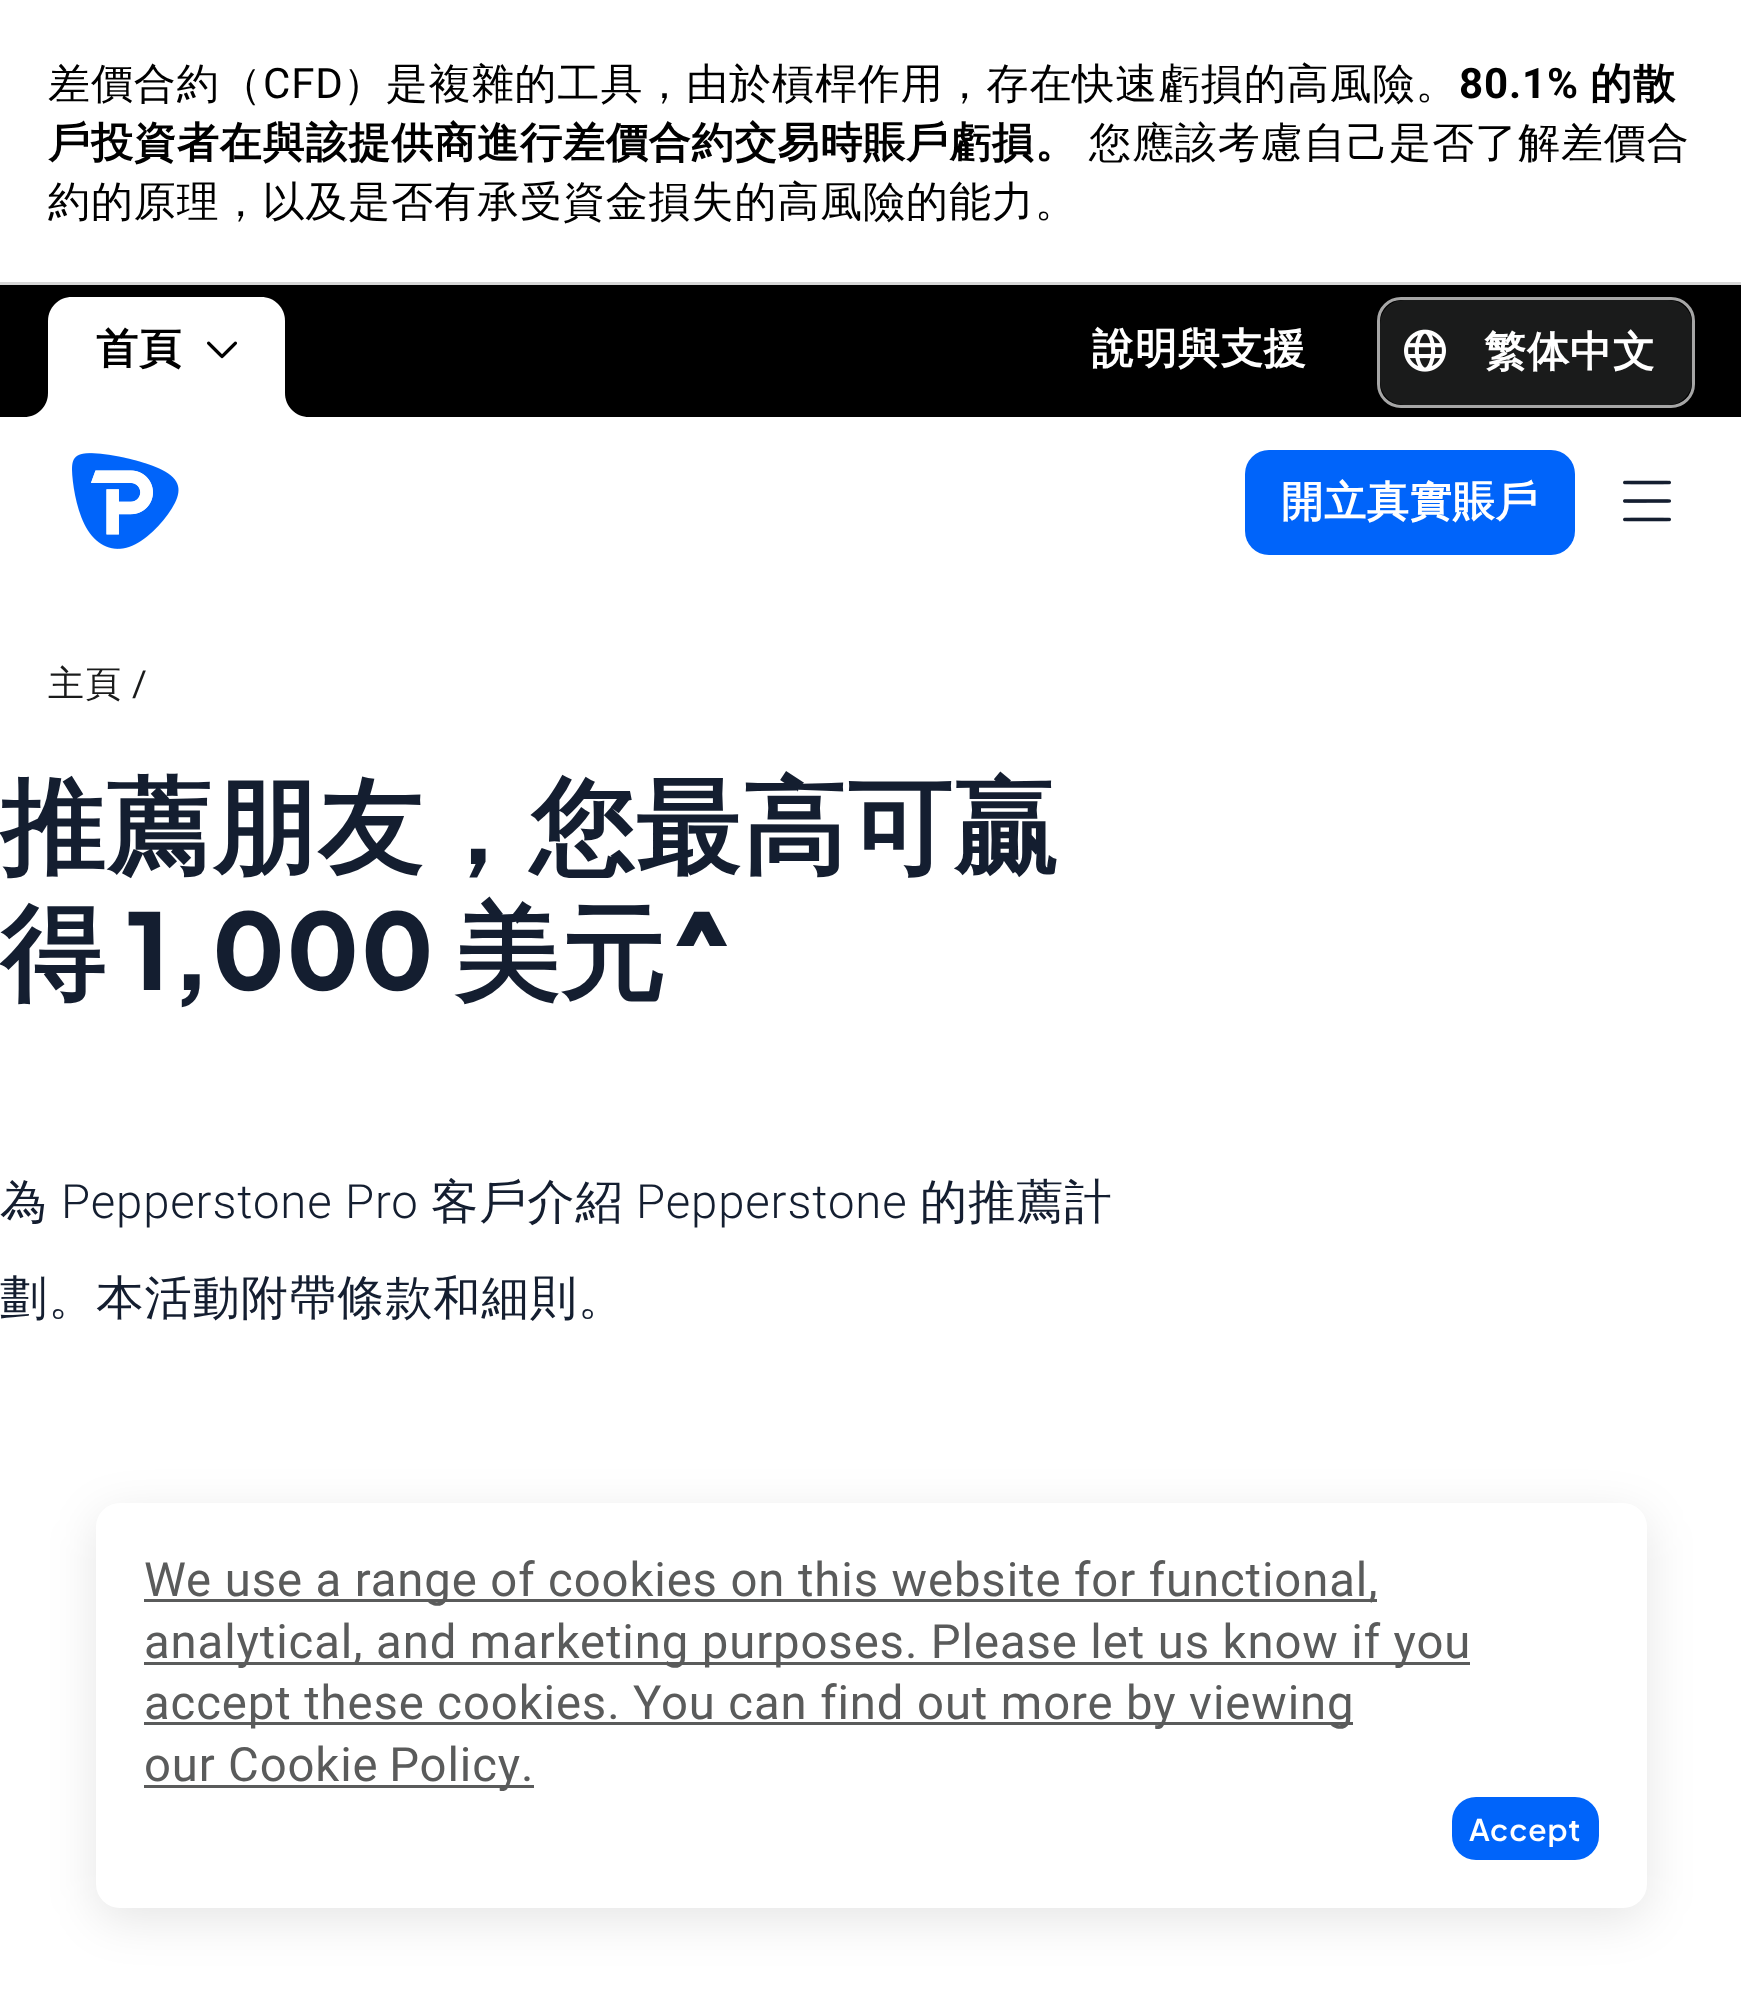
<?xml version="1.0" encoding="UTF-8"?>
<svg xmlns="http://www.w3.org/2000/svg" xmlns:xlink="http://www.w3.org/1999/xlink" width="1741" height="2002">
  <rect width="100%" height="100%" fill="#ffffff" />
  <rect y="282" width="1741" height="3" fill="#d6d6d6" />
  <rect y="285" width="1741" height="132" fill="#000000" />
  <path d="M 72 297 h 189 c 13.5 0 24 10.5 24 24 v 96 h -237 v -96 c 0 -13.5 10.5 -24 24 -24 z" fill="#ffffff" />
  <image x="207" y="341" width="30" height="18" xlink:href="image1.png" />
  <rect x="24" y="393" width="24" height="24" fill="#ffffff" />
  <path d="M 24 369 c 13.5 0 24 10.5 24 24 c 0 13.5 -10.5 24 -24 24 z" fill="#000000" />
  <rect x="285" y="393" width="24" height="24" fill="#ffffff" />
  <path d="M 309 369 v 48 c -13.5 0 -24 -10.5 -24 -24 c 0 -13.5 10.5 -24 24 -24 z" fill="#000000" />
  <rect x="1378.5" y="298.5" width="315" height="108" rx="22.5" fill="none" stroke="#a6a6a6" stroke-width="3" />
  <rect x="1380" y="300" width="312" height="105" rx="24" fill="#1a1b1b" />
  <image x="1404" y="329" width="42" height="43" xlink:href="image2.png" />
  <image x="72" y="453" width="107" height="96" xlink:href="image3.png" />
  <rect x="1245" y="450" width="330" height="105" rx="24" fill="#0064fa" />
  <image x="1623" y="480" width="48" height="42" xlink:href="image4.png" />
  <rect x="96" y="1515" width="1551" height="405" rx="24" fill="#000000" fill-opacity="0.1" filter="blur(24px)" />
  <rect x="96" y="1503" width="1551" height="405" rx="24" fill="#ffffff" />
  <rect x="144" y="1599" width="1233" height="3" fill="#5a5b5b" />
  <rect x="144" y="1662" width="1326" height="3" fill="#5a5b5b" />
  <rect x="144" y="1722" width="1209" height="3" fill="#5a5b5b" />
  <rect x="144" y="1785" width="390" height="3" fill="#5a5b5b" />
  <rect x="1452" y="1797" width="147" height="63" rx="24" fill="#0064fa" />
  <text x="48" y="98" style="font-family: WenQuanYi Zen Hei; font-size: 42px; font-weight: 500; letter-spacing: 0.9px; fill: #000000">差價合約（</text>
  <text x="263" y="98" style="font-family: Roboto; font-size: 42px; letter-spacing: 0.9px; fill: #000000">CFD</text>
  <text x="343" y="98" style="font-family: WenQuanYi Zen Hei; font-size: 42px; font-weight: 500; letter-spacing: 0.9px; fill: #000000">）是複雜的工具，由於槓桿作用，存在快速虧損的高風險。</text>
  <text x="1459" y="98" style="font-family: Roboto; font-size: 42px; font-weight: bold; letter-spacing: 0.9px; fill: #000000">80.1%</text>
  <text x="1590" y="98" style="font-family: WenQuanYi Zen Hei; font-size: 42px; font-weight: bold; letter-spacing: 0.9px; fill: #000000">的散</text>
  <text x="48" y="157" style="font-family: WenQuanYi Zen Hei; font-size: 42px; font-weight: bold; letter-spacing: 0.9px; fill: #000000">戶投資者在與該提供商進行差價合約交易時賬戶虧損。</text>
  <text x="1089" y="157" style="font-family: WenQuanYi Zen Hei; font-size: 42px; font-weight: 500; letter-spacing: 0.9px; fill: #000000">您應該考慮自己是否了解差價合</text>
  <text x="48" y="216" style="font-family: WenQuanYi Zen Hei; font-size: 42px; font-weight: 500; letter-spacing: 0.9px; fill: #000000">約的原理，以及是否有承受資金損失的高風險的能力。</text>
  <text x="96" y="363" style="font-family: WenQuanYi Zen Hei; font-size: 42px; font-weight: bold; letter-spacing: 0.9px; fill: #000000">首頁</text>
  <text x="1092" y="363" style="font-family: WenQuanYi Zen Hei; font-size: 42px; font-weight: bold; letter-spacing: 0.9px; fill: #ffffff">說明與支援</text>
  <text x="1484" y="366" style="font-family: WenQuanYi Zen Hei; font-size: 42px; font-weight: bold; letter-spacing: 0.9px; fill: #ffffff">繁体中文</text>
  <text x="1281" y="516" style="font-family: WenQuanYi Zen Hei; font-size: 42px; font-weight: bold; letter-spacing: 0.9px; fill: #ffffff">開立真實賬戶</text>
  <text x="48" y="696" style="font-family: WenQuanYi Zen Hei; font-size: 36px; font-weight: 500; letter-spacing: 0.9px; fill: #1a1b1b">主頁</text>
  <text x="132" y="696" style="font-family: Roboto; font-size: 36px; letter-spacing: 0.9px; fill: #1a1b1b">/</text>
  <text x="0" y="864" style="font-family: WenQuanYi Zen Hei; font-size: 105px; font-weight: bold; letter-spacing: 0.9px; fill: #141e30">推薦朋友，您最高可贏</text>
  <text x="0" y="990" style="font-family: WenQuanYi Zen Hei; font-size: 105px; font-weight: bold; letter-spacing: 0.9px; fill: #141e30">得</text>
  <text x="126" y="990" style="font-family: Plus Jakarta Sans; font-size: 105px; font-weight: 800; letter-spacing: 0.9px; fill: #141e30">1,000</text>
  <text x="454" y="990" style="font-family: WenQuanYi Zen Hei; font-size: 105px; font-weight: bold; letter-spacing: 0.9px; fill: #141e30">美元</text>
  <text x="666" y="990" style="font-family: Plus Jakarta Sans; font-size: 105px; font-weight: 800; letter-spacing: 0.9px; fill: #141e30">^</text>
  <text x="0" y="1218" style="font-family: WenQuanYi Zen Hei; font-size: 47.25px; font-weight: 500; letter-spacing: 0.9px; fill: #141e30">為</text>
  <text x="61" y="1218" style="font-family: Roboto; font-size: 47.25px; font-weight: 300; letter-spacing: 0.9px; fill: #141e30">Pepperstone Pro</text>
  <text x="431" y="1218" style="font-family: WenQuanYi Zen Hei; font-size: 47.25px; font-weight: 500; letter-spacing: 0.9px; fill: #141e30">客戶介紹</text>
  <text x="636" y="1218" style="font-family: Roboto; font-size: 47.25px; font-weight: 300; letter-spacing: 0.9px; fill: #141e30">Pepperstone</text>
  <text x="920" y="1218" style="font-family: WenQuanYi Zen Hei; font-size: 47.25px; font-weight: 500; letter-spacing: 0.9px; fill: #141e30">的推薦計</text>
  <text x="0" y="1314" style="font-family: WenQuanYi Zen Hei; font-size: 47.25px; font-weight: 500; letter-spacing: 0.9px; fill: #141e30">劃。本活動附帶條款和細則。</text>
  <text x="144" y="1596" style="font-family: Roboto; font-size: 47.25px; letter-spacing: 0.9px; fill: #5a5b5b">We use a range of cookies on this website for functional,</text>
  <text x="144" y="1658" style="font-family: Roboto; font-size: 47.25px; letter-spacing: 0.9px; fill: #5a5b5b">analytical, and marketing purposes. Please let us know if you</text>
  <text x="144" y="1719" style="font-family: Roboto; font-size: 47.25px; letter-spacing: 0.9px; fill: #5a5b5b">accept these cookies. You can find out more by viewing</text>
  <text x="144" y="1781" style="font-family: Roboto; font-size: 47.25px; letter-spacing: 0.9px; fill: #5a5b5b">our</text>
  <text x="228" y="1781" word-spacing="-2" style="font-family: Roboto; font-size: 47.25px; letter-spacing: 0.9px; fill: #5a5b5b">Cookie Policy</text>
  <text x="521" y="1781" style="font-family: Roboto; font-size: 47.25px; letter-spacing: 0.9px; fill: #5a5b5b">.</text>
  <text x="1469" y="1841" style="font-family: Plus Jakarta Sans; font-size: 30px; font-weight: 600; letter-spacing: 0.9px; fill: #ffffff">Accept</text>
</svg>
